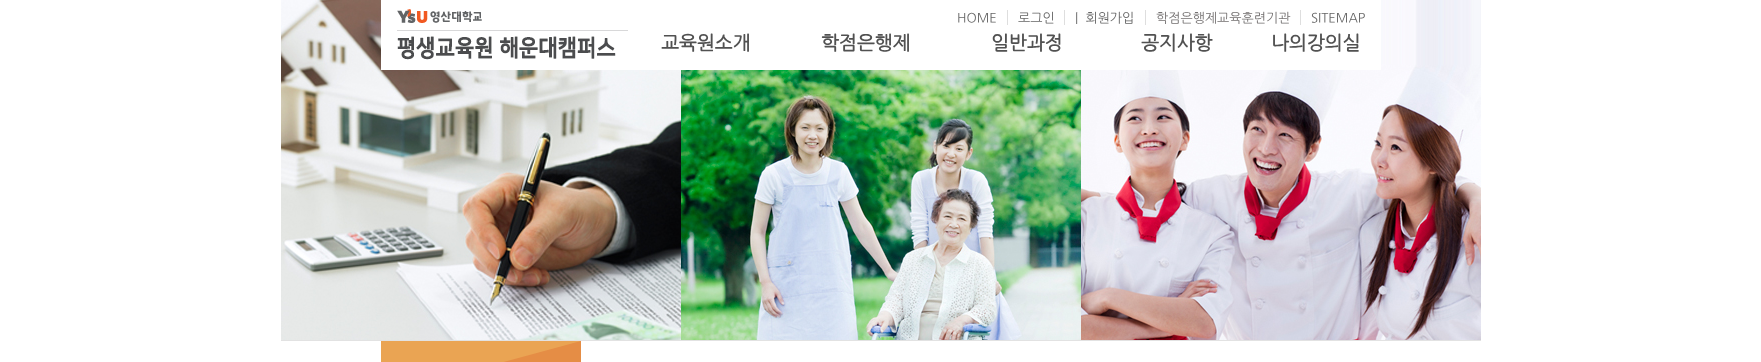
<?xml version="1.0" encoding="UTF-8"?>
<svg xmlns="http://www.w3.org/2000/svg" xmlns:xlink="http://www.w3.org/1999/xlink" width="1761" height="362">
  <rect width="100%" height="100%" fill="#ffffff" />
  <rect x="281" y="340" width="1200" height="1" fill="#e2e2e2" />
  <image x="281" y="0" width="1200" height="340" xlink:href="image1.png" />
  <rect x="381" width="1000" height="70" fill="#ffffff" />
  <image x="397" y="9" width="231" height="51" xlink:href="image2.png" />
  <rect x="1007" y="10" width="1" height="15" fill="#dedede" />
  <rect x="1064" y="10" width="1" height="15" fill="#dedede" />
  <rect x="1145" y="10" width="1" height="15" fill="#dedede" />
  <rect x="1300" y="10" width="1" height="15" fill="#dedede" />
  <image x="381" y="341" width="200" height="21" xlink:href="image3.png" />
  <text x="957" y="22" style="font-family: NanumGothic; font-size: 13px; fill: #666666">HOME</text>
  <text x="1018" y="22" style="font-family: NanumGothic; font-size: 13px; fill: #666666">로그인</text>
  <text x="1075" y="22" style="font-family: NanumGothic; font-size: 13px; fill: #666666" xml:space="preserve">|  회원가입</text>
  <text x="1156" y="22" style="font-family: NanumGothic; font-size: 13px; fill: #747171">학점은행제교육훈련기관</text>
  <text x="1311" y="22" style="font-family: NanumGothic; font-size: 13px; fill: #666666">SITEMAP</text>
  <text x="661" y="49" style="font-family: NanumGothic; font-size: 19px; font-weight: bold; fill: #515151">교육원소개</text>
  <text x="821" y="49" style="font-family: NanumGothic; font-size: 19px; font-weight: bold; fill: #515151">학점은행제</text>
  <text x="991" y="49" style="font-family: NanumGothic; font-size: 19px; font-weight: bold; fill: #515151">일반과정</text>
  <text x="1141" y="49" style="font-family: NanumGothic; font-size: 19px; font-weight: bold; fill: #515151">공지사항</text>
  <text x="1271" y="49" style="font-family: NanumGothic; font-size: 19px; font-weight: bold; fill: #515151">나의강의실</text>
</svg>
